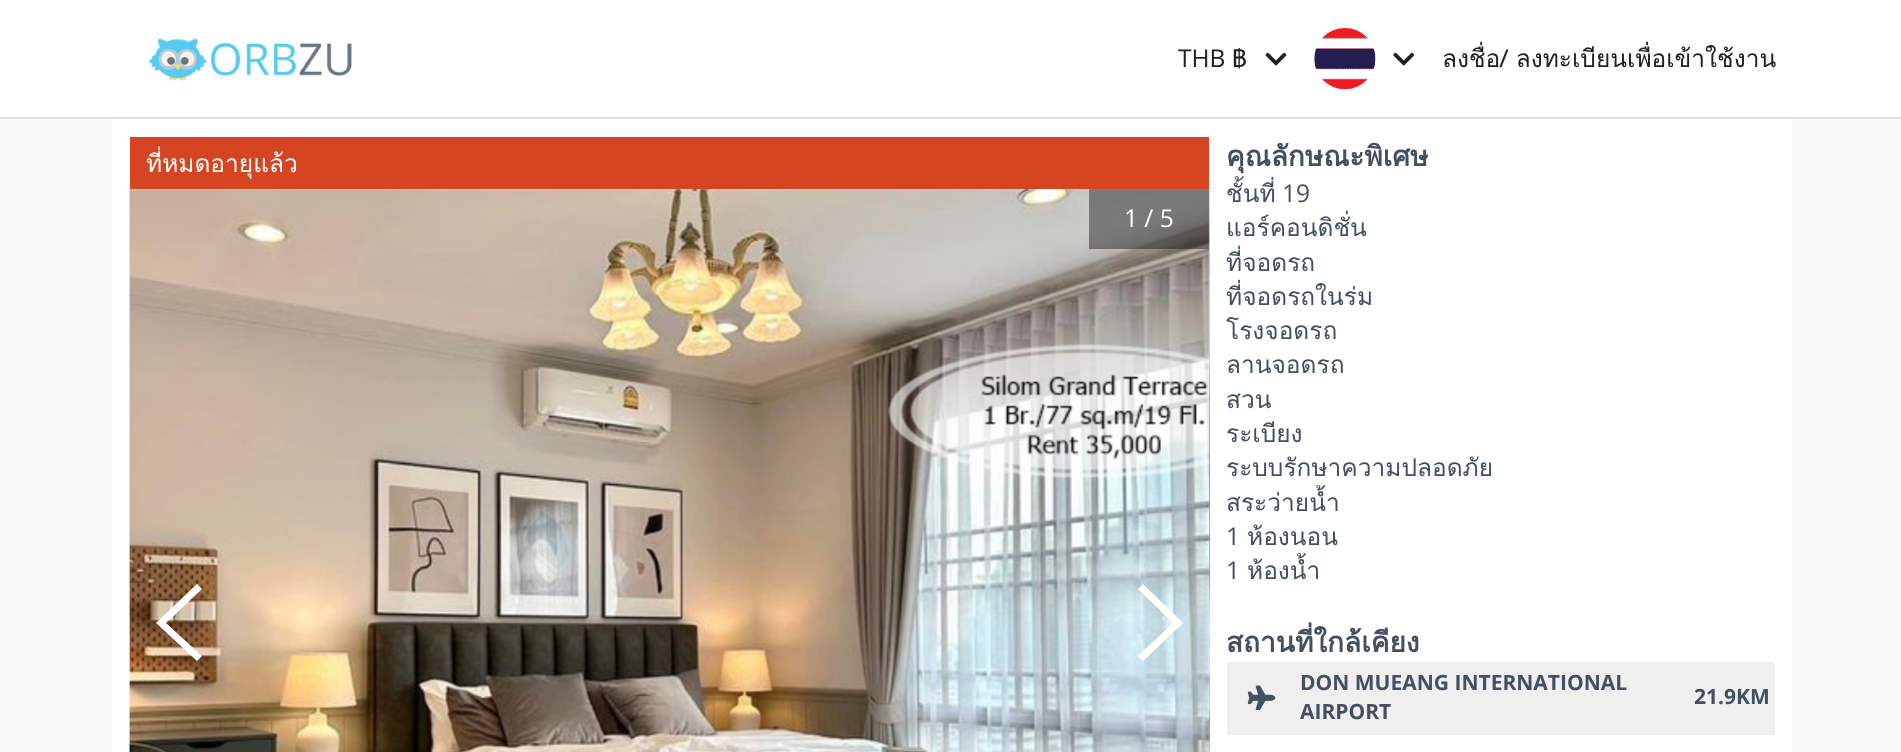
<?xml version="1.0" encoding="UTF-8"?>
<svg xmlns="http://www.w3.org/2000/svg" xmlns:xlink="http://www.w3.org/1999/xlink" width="1901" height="752">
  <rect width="100%" height="100%" fill="#fafafa" />
  <rect width="1901" height="117" fill="#ffffff" />
  <rect y="117" width="1901" height="2" fill="#dddddd" />
  <image x="148" y="38" width="204" height="43" xlink:href="image1.png" />
  <image x="1265" y="52" width="22" height="14" xlink:href="image2.png" />
  <image x="1314" y="28" width="62" height="62" xlink:href="image3.png" />
  <image x="1393" y="52" width="22" height="14" xlink:href="image4.png" />
  <rect x="112" y="119" width="1680" height="633" fill="#ffffff" />
  <rect x="130" y="137" width="1079" height="52" fill="#d64521" />
  <image x="129" y="189" width="1081" height="563" xlink:href="image5.png" />
  <image x="1209" y="189" width="1" height="563" xlink:href="image6.png" />
  <rect x="1089" y="189" width="120" height="60" fill="#000000" fill-opacity="0.4" />
  <path d="M 202 589 l -36 34 l 36 33 l -5 5 l -41 -38 l 41 -39 z" fill="#ffffff" />
  <path d="M 1138 589 l 5 -5 l 40 39 l -40 38 l -5 -5 l 35 -33 z" fill="#ffffff" />
  <rect x="1227" y="662" width="548" height="73" fill="#efefef" />
  <image x="1247" y="685" width="29" height="26" xlink:href="image7.png" />
  <text x="1178" y="67" style="font-family: Open Sans; font-size: 24.5px; fill: #212121">THB</text>
  <text x="1232" y="67" style="font-family: Loma; font-size: 24.5px; fill: #212121">฿</text>
  <text x="1442" y="67" style="font-family: Loma; font-size: 24.5px; fill: #212121">ลงชื่อ/ ลงทะเบียนเพื่อเข้าใช้งาน</text>
  <text x="146" y="172" style="font-family: Loma; font-size: 24.5px; fill: #ffffff">ที่หมดอายุแล้ว</text>
  <text x="1124" y="227" style="font-family: Open Sans; font-size: 24.5px; fill: #ffffff">1 / 5</text>
  <text x="1226" y="166" style="font-family: Loma; font-size: 28px; font-weight: bold; fill: #435062">คุณลักษณะพิเศษ</text>
  <text x="1226" y="202" style="font-family: Loma; font-size: 24.5px; fill: #435062">ชั้นที่</text>
  <text x="1282" y="202" style="font-family: Open Sans; font-size: 24.5px; fill: #435062">19</text>
  <text x="1226" y="236" style="font-family: Loma; font-size: 24.5px; fill: #435062">แอร์คอนดิชั่น</text>
  <text x="1226" y="271" style="font-family: Loma; font-size: 24.5px; fill: #435062">ที่จอดรถ</text>
  <text x="1226" y="305" style="font-family: Loma; font-size: 24.5px; fill: #435062">ที่จอดรถในร่ม</text>
  <text x="1226" y="339" style="font-family: Loma; font-size: 24.5px; fill: #435062">โรงจอดรถ</text>
  <text x="1226" y="373" style="font-family: Loma; font-size: 24.5px; fill: #435062">ลานจอดรถ</text>
  <text x="1226" y="408" style="font-family: Loma; font-size: 24.5px; fill: #435062">สวน</text>
  <text x="1226" y="442" style="font-family: Loma; font-size: 24.5px; fill: #435062">ระเบียง</text>
  <text x="1226" y="476" style="font-family: Loma; font-size: 24.5px; fill: #435062">ระบบรักษาความปลอดภัย</text>
  <text x="1226" y="511" style="font-family: Loma; font-size: 24.5px; fill: #435062">สระว่ายน้ำ</text>
  <text x="1226" y="545" style="font-family: Open Sans; font-size: 24.5px; fill: #435062">1</text>
  <text x="1247" y="545" style="font-family: Loma; font-size: 24.5px; fill: #435062">ห้องนอน</text>
  <text x="1226" y="579" style="font-family: Open Sans; font-size: 24.5px; fill: #435062">1</text>
  <text x="1247" y="579" style="font-family: Loma; font-size: 24.5px; fill: #435062">ห้องน้ำ</text>
  <text x="1226" y="652" style="font-family: Loma; font-size: 28px; font-weight: bold; fill: #435062">สถานที่ใกล้เคียง</text>
  <text x="1300" y="690" style="font-family: Open Sans; font-size: 21px; font-weight: bold; fill: #435062">DON MUEANG INTERNATIONAL</text>
  <text x="1300" y="719" style="font-family: Open Sans; font-size: 21px; font-weight: bold; fill: #435062">AIRPORT</text>
  <text x="1694" y="704" style="font-family: Open Sans; font-size: 21px; font-weight: bold; fill: #435062">21.9KM</text>
</svg>
